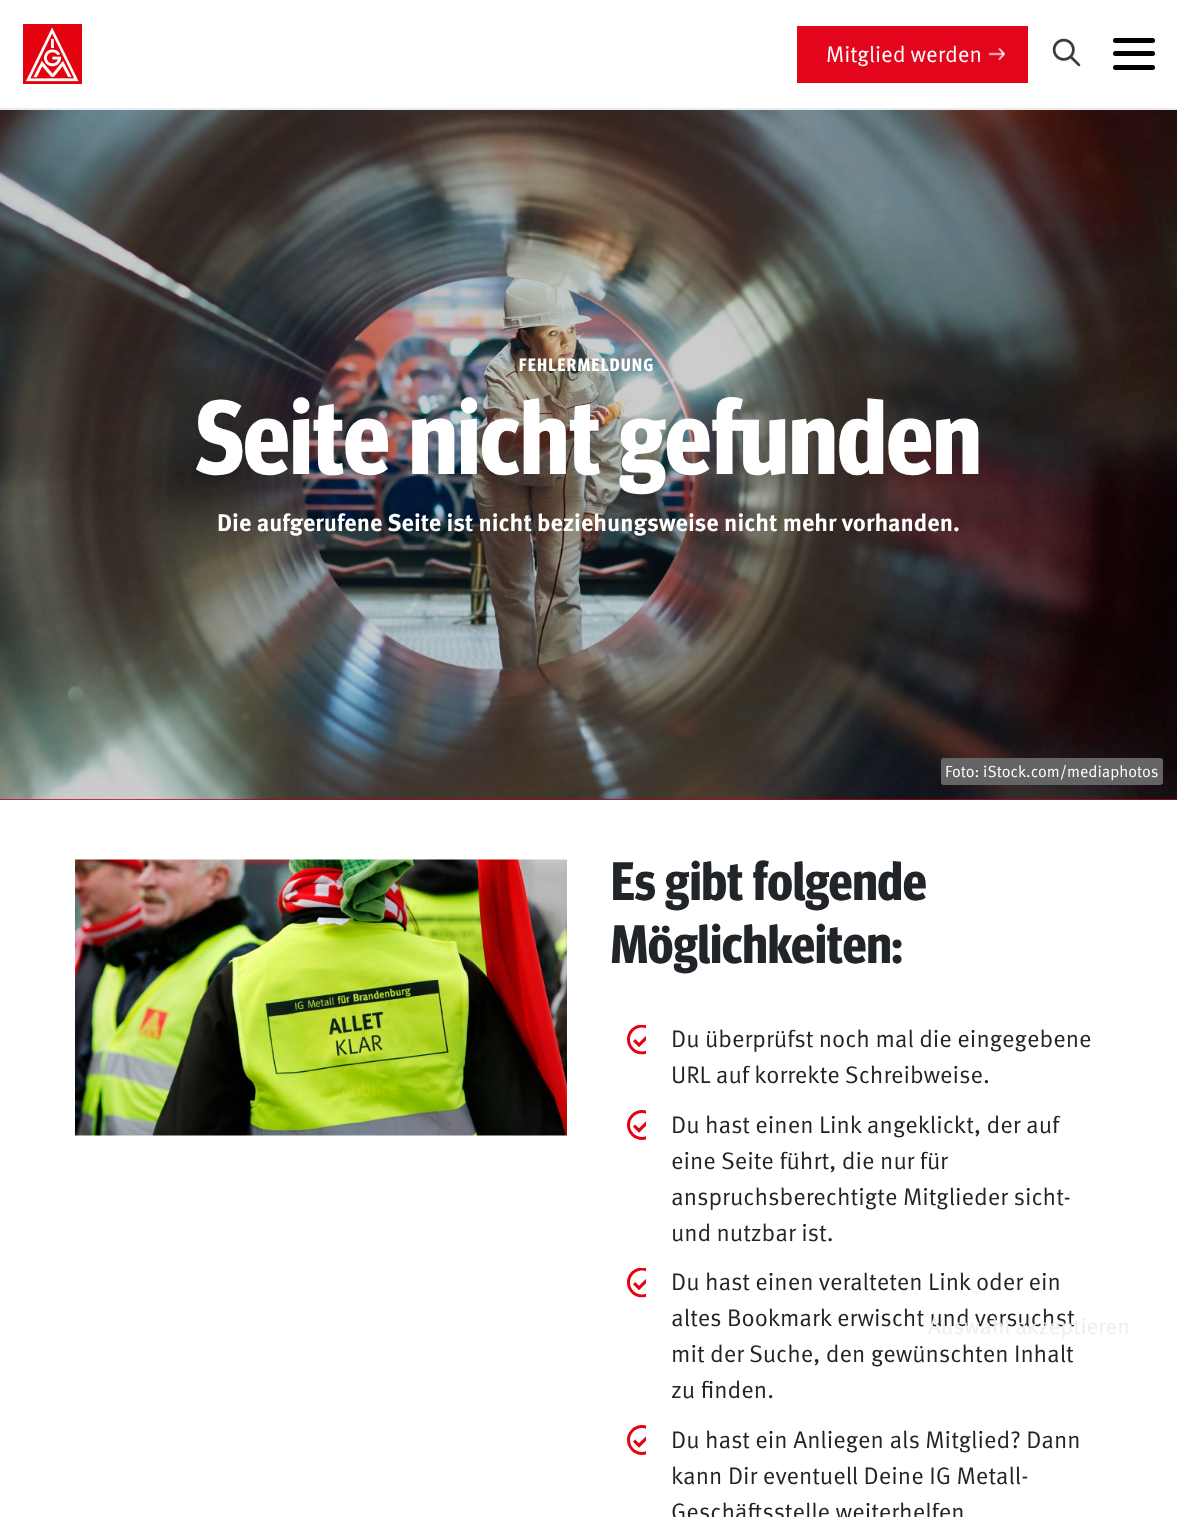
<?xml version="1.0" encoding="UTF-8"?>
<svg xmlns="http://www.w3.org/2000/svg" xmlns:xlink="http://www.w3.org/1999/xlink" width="1177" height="1517">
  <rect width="100%" height="100%" fill="#ffffff" />
  <image x="23" y="24" width="59" height="60" xlink:href="image1.png" />
  <rect x="797" y="26" width="231" height="57" fill="#e3051b" />
  <image x="989" y="48" width="16" height="13" xlink:href="image2.png" />
  <image x="1052" y="38" width="29" height="29" xlink:href="image3.png" />
  <rect x="1113" y="51" width="42" height="5" rx="2.5" fill="#000000" />
  <rect x="1113" y="38" width="42" height="5" rx="2.5" fill="#000000" />
  <rect x="1113" y="65" width="42" height="5" rx="2.5" fill="#000000" />
  <rect y="108" width="1177" height="2" fill="#ebebef" />
  <rect y="799" width="1177" height="1" fill="#b60416" />
  <image x="0" y="110" width="1177" height="690" xlink:href="image4.png" />
  <rect x="941" y="758" width="222" height="27" rx="3" fill="#646464" />
  <image x="75" y="859" width="492" height="277" xlink:href="image5.png" />
  <image x="627" y="1025" width="19" height="30" xlink:href="image6.png" />
  <image x="627" y="1110" width="19" height="30" xlink:href="image7.png" />
  <image x="627" y="1268" width="19" height="30" xlink:href="image8.png" />
  <image x="627" y="1425" width="19" height="30" xlink:href="image7.png" />
  <text x="826" y="62" style="font-family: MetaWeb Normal; font-size: 22.5px; fill: #ffffff">Mitglied werden</text>
  <text x="519" y="371" style="font-family: 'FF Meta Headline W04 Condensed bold'; font-size: 18px; font-weight: bold; letter-spacing: 1.5px; fill: #ffffff">FEHLERMELDUNG</text>
  <text x="195" y="474" style="font-family: 'FF Meta Headline W04 Condensed bold'; font-size: 105px; font-weight: bold; fill: #ffffff">Seite nicht gefunden</text>
  <text x="217" y="531" style="font-family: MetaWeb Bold; font-size: 24px; font-weight: bold; fill: #ffffff">Die aufgerufene Seite ist nicht beziehungsweise nicht mehr vorhanden.</text>
  <text x="945" y="777" style="font-family: MetaWeb Normal; font-size: 16px; fill: #ffffff">Foto: iStock.com/mediaphotos</text>
  <text x="611" y="900" style="font-family: 'FF Meta Headline W04 Condensed bold'; font-size: 54px; font-weight: bold; fill: #212529">Es gibt folgende</text>
  <text x="611" y="963" style="font-family: 'FF Meta Headline W04 Condensed bold'; font-size: 54px; font-weight: bold; fill: #212529">Möglichkeiten:</text>
  <text x="671" y="1047" style="font-family: MetaWeb Normal; font-size: 24px; fill: #212529">Du überprüfst noch mal die eingegebene</text>
  <text x="671" y="1083" style="font-family: MetaWeb Normal; font-size: 24px; fill: #212529">URL auf korrekte Schreibweise.</text>
  <text x="671" y="1133" style="font-family: MetaWeb Normal; font-size: 24px; fill: #212529">Du hast einen Link angeklickt, der auf</text>
  <text x="671" y="1169" style="font-family: MetaWeb Normal; font-size: 24px; fill: #212529">eine Seite führt, die nur für</text>
  <text x="671" y="1205" style="font-family: MetaWeb Normal; font-size: 24px; fill: #212529">anspruchsberechtigte Mitglieder sicht-</text>
  <text x="671" y="1241" style="font-family: MetaWeb Normal; font-size: 24px; fill: #212529">und nutzbar ist.</text>
  <text x="671" y="1290" style="font-family: MetaWeb Normal; font-size: 24px; fill: #212529">Du hast einen veralteten Link oder ein</text>
  <text x="671" y="1326" style="font-family: MetaWeb Normal; font-size: 24px; fill: #212529">altes Bookmark erwischt und versuchst</text>
  <text x="671" y="1362" style="font-family: MetaWeb Normal; font-size: 24px; fill: #212529">mit der Suche, den gewünschten Inhalt</text>
  <text x="671" y="1398" style="font-family: MetaWeb Normal; font-size: 24px; fill: #212529">zu finden.</text>
  <text x="671" y="1448" style="font-family: MetaWeb Normal; font-size: 24px; fill: #212529">Du hast ein Anliegen als Mitglied? Dann</text>
  <text x="671" y="1484" style="font-family: MetaWeb Normal; font-size: 24px; fill: #212529">kann Dir eventuell Deine IG Metall-</text>
  <text x="671" y="1520" style="font-family: MetaWeb Normal; font-size: 24px; fill: #212529">Geschäftsstelle weiterhelfen</text>
  <text x="928" y="1334" style="font-family: MetaWeb Normal; font-size: 22.5px; fill: #edeeee">Auswahl akzeptieren</text>
</svg>
